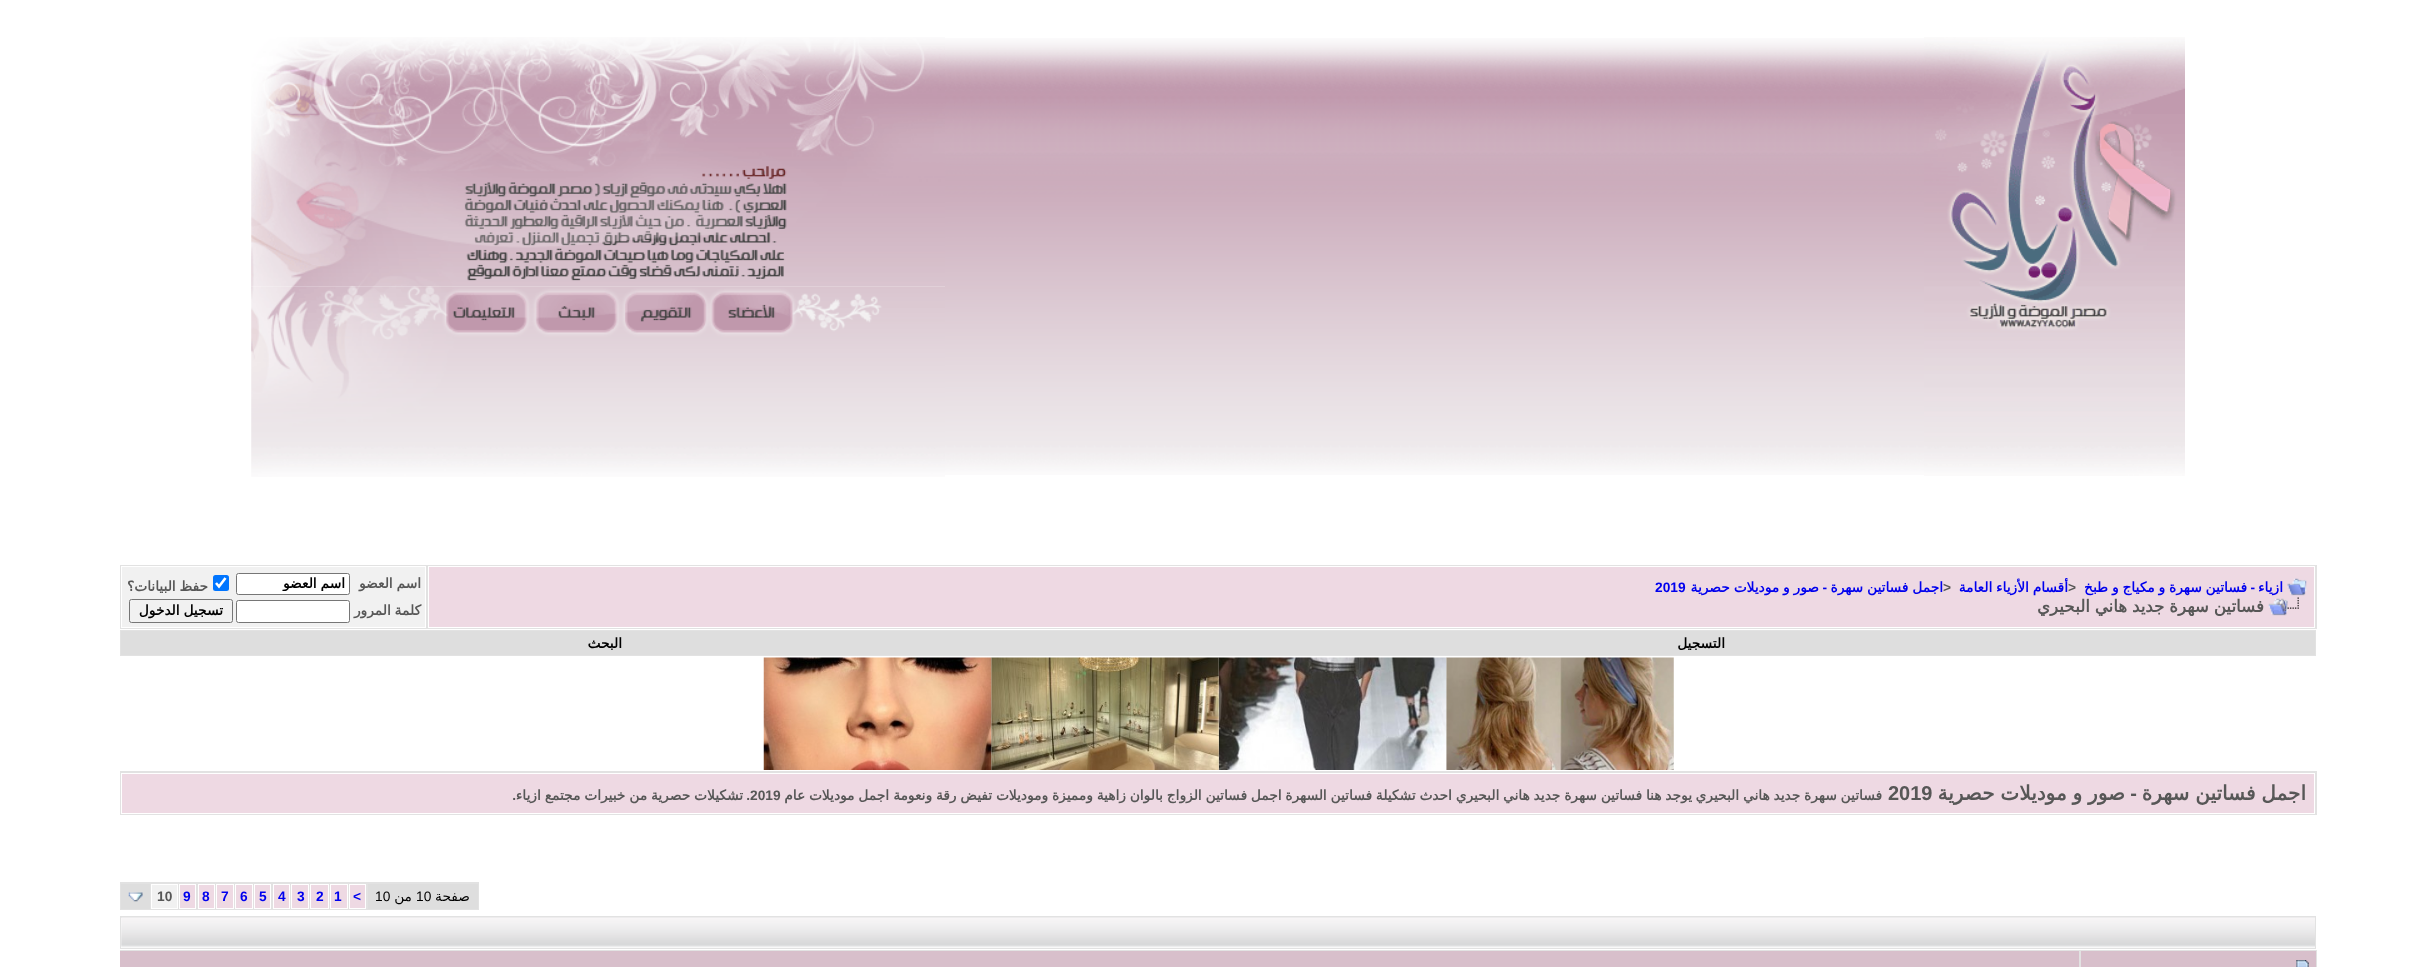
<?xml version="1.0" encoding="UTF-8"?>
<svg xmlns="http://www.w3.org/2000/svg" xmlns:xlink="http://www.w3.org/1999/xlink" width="2436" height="967">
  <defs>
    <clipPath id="clip1"><rect x="241" y="575" width="104" height="16" /></clipPath>
  </defs>
  <rect width="100%" height="100%" fill="#ffffff" />
  <image x="945" y="38" width="979" height="437" xlink:href="image1.png" />
  <image x="1924" y="37" width="261" height="439" xlink:href="image2.png" />
  <image x="251" y="37" width="694" height="250" xlink:href="image3.png" />
  <image x="251" y="286" width="694" height="191" xlink:href="image4.png" />
  <rect x="120" y="565" width="2197" height="64" fill="#e2e2e2" />
  <rect x="428.5" y="566.5" width="1886" height="61" fill="#eed9e3" stroke="#ffffff" />
  <image x="2287" y="578" width="20" height="18" xlink:href="image5.png" />
  <image x="2268" y="597" width="31" height="19" xlink:href="image6.png" />
  <rect x="121.5" y="566.5" width="304" height="61" fill="#f1f1f1" stroke="#ffffff" />
  <rect x="236.5" y="573.5" width="113" height="21" rx="2" fill="#ffffff" stroke="#767676" />
  <rect x="213" y="575" width="16" height="16" rx="2.5" fill="#0075ff" />
  <path d="M 216 583 l 3 3.5 l 6.5 -8.5" fill="none" stroke="#ffffff" stroke-width="2.6" />
  <rect x="236.5" y="600.5" width="113" height="22" rx="2" fill="#ffffff" stroke="#767676" />
  <rect x="129.5" y="599.5" width="103" height="23" rx="2" fill="none" stroke="#767676" />
  <rect x="120" y="630" width="2196" height="26" fill="#e2e2e2" />
  <rect x="121" y="631" width="2194" height="24" fill="#dedede" />
  <image x="1446" y="657" width="228" height="113" xlink:href="image7.png" />
  <image x="1218" y="657" width="229" height="113" xlink:href="image8.png" />
  <image x="991" y="657" width="228" height="113" xlink:href="image9.png" />
  <image x="763" y="657" width="229" height="113" xlink:href="image10.png" />
  <rect x="120" y="771" width="2197" height="44" fill="#e2e2e2" />
  <rect x="121.5" y="773.5" width="2193" height="40" fill="#eed9e3" stroke="#ffffff" />
  <rect x="120" y="882" width="359" height="28" fill="#e2e2e2" />
  <rect x="368" y="884" width="110" height="25" fill="#dedede" />
  <rect x="349.5" y="884.5" width="16" height="24" fill="#eed9e3" stroke="#ffffff" />
  <rect x="330.5" y="884.5" width="17" height="24" fill="#eed9e3" stroke="#ffffff" />
  <rect x="310.5" y="884.5" width="18" height="24" fill="#eed9e3" stroke="#ffffff" />
  <rect x="291.5" y="884.5" width="17" height="24" fill="#eed9e3" stroke="#ffffff" />
  <rect x="273.5" y="884.5" width="16" height="24" fill="#eed9e3" stroke="#ffffff" />
  <rect x="254.5" y="884.5" width="16" height="24" fill="#eed9e3" stroke="#ffffff" />
  <rect x="235.5" y="884.5" width="17" height="24" fill="#eed9e3" stroke="#ffffff" />
  <rect x="216.5" y="884.5" width="17" height="24" fill="#eed9e3" stroke="#ffffff" />
  <rect x="198.5" y="884.5" width="16" height="24" fill="#eed9e3" stroke="#ffffff" />
  <rect x="179.5" y="884.5" width="16" height="24" fill="#eed9e3" stroke="#ffffff" />
  <rect x="151.5" y="884.5" width="26" height="24" fill="#f1f1f1" stroke="#ffffff" />
  <rect x="121" y="884" width="29" height="25" fill="#dedede" />
  <image x="128" y="892" width="15" height="10" xlink:href="image11.png" />
  <rect x="120" y="916" width="2196" height="33" fill="#e2e2e2" />
  <rect x="121" y="918" width="2194" height="30" fill="#ffffff" />
  <image x="121" y="917" width="2194" height="31" xlink:href="image12.png" />
  <rect x="2316" y="950" width="1" height="17" fill="#e2e2e2" />
  <rect x="2081" y="951" width="235" height="16" fill="#d8bfcb" />
  <rect x="120" y="950" width="2196" height="1" fill="#e2e2e2" />
  <rect x="2079" y="950" width="2" height="17" fill="#e2e2e2" />
  <image x="2296" y="960" width="13" height="7" xlink:href="image13.png" />
  <rect x="120" y="951" width="1959" height="16" fill="#d8bfcb" />
  <text x="2283" y="592" style="font-family: DejaVu Sans; font-size: 13.75px; font-weight: bold; direction: rtl; fill: #0000ee">ازياء</text>
  <text x="2255" y="592" style="font-family: Liberation Sans; font-size: 13.75px; font-weight: bold; direction: rtl; fill: #0000ee">-</text>
  <text x="2247" y="592" word-spacing="-0.5" style="font-family: DejaVu Sans; font-size: 13.75px; font-weight: bold; direction: rtl; fill: #0000ee">فساتين سهرة و مكياج و طبخ</text>
  <text x="2068" y="592" style="font-family: Liberation Sans; font-size: 13.75px; font-weight: bold; fill: #575757">&gt;</text>
  <text x="2068" y="592" word-spacing="-0.55" style="font-family: DejaVu Sans; font-size: 13.75px; font-weight: bold; direction: rtl; fill: #0000ee">أقسام الأزياء العامة</text>
  <text x="1943" y="592" style="font-family: Liberation Sans; font-size: 13.75px; font-weight: bold; fill: #575757">&gt;</text>
  <text x="1943" y="592" word-spacing="-0.5" style="font-family: DejaVu Sans; font-size: 13.75px; font-weight: bold; direction: rtl; fill: #0000ee">اجمل فساتين سهرة</text>
  <text x="1827" y="592" style="font-family: Liberation Sans; font-size: 13.75px; font-weight: bold; direction: rtl; fill: #0000ee">-</text>
  <text x="1819" y="592" word-spacing="-0.5" style="font-family: DejaVu Sans; font-size: 13.75px; font-weight: bold; direction: rtl; fill: #0000ee">صور و موديلات حصرية</text>
  <text x="1655" y="592" style="font-family: Liberation Sans; font-size: 13.75px; font-weight: bold; fill: #0000ee">2019</text>
  <text x="2264" y="612" word-spacing="-0.5" style="font-family: DejaVu Sans; font-size: 16.7px; font-weight: bold; direction: rtl; fill: #575757">فساتين سهرة جديد هاني البحيري</text>
  <text x="421" y="588" word-spacing="-0.55" style="font-family: DejaVu Sans; font-size: 13.75px; font-weight: bold; direction: rtl; fill: #575757">اسم العضو</text>
  <g clip-path="url(#clip1)">
    <text x="345" y="588" word-spacing="-0.55" style="font-family: DejaVu Sans; font-size: 13.75px; font-weight: bold; direction: rtl; fill: #000000">اسم العضو</text>
  </g>
  <text x="208" y="591" word-spacing="-0.55" style="font-family: DejaVu Sans; font-size: 13.75px; font-weight: bold; direction: rtl; fill: #575757">حفظ البيانات؟</text>
  <text x="421" y="615" word-spacing="-0.55" style="font-family: DejaVu Sans; font-size: 13.75px; font-weight: bold; direction: rtl; fill: #575757">كلمة المرور</text>
  <text x="223" y="615" word-spacing="-0.55" style="font-family: DejaVu Sans; font-size: 13.75px; font-weight: bold; direction: rtl; fill: #000000">تسجيل الدخول</text>
  <text x="1725" y="648" style="font-family: DejaVu Sans; font-size: 13.75px; font-weight: bold; direction: rtl; fill: #000000">التسجيل</text>
  <text x="622" y="648" style="font-family: DejaVu Sans; font-size: 13.75px; font-weight: bold; direction: rtl; fill: #000000">البحث</text>
  <text x="2306" y="800" word-spacing="-0.5" style="font-family: DejaVu Sans; font-size: 20px; font-weight: bold; direction: rtl; fill: #575757">اجمل فساتين سهرة</text>
  <text x="2137" y="800" style="font-family: Liberation Sans; font-size: 20px; font-weight: bold; direction: rtl; fill: #575757">-</text>
  <text x="2125" y="800" word-spacing="-0.5" style="font-family: DejaVu Sans; font-size: 20px; font-weight: bold; direction: rtl; fill: #575757">صور و موديلات حصرية</text>
  <text x="1888" y="800" style="font-family: Liberation Sans; font-size: 20px; font-weight: bold; fill: #575757">2019</text>
  <text x="1882" y="800" word-spacing="-0.55" style="font-family: DejaVu Sans; font-size: 13.75px; font-weight: bold; direction: rtl; fill: #575757">فساتين سهرة جديد هاني البحيري</text>
  <text x="1692" y="800" word-spacing="-0.55" style="font-family: DejaVu Sans; font-size: 13.75px; font-weight: bold; direction: rtl; fill: #575757">يوجد هنا فساتين سهرة جديد هاني البحيري احدث تشكيلة فساتين السهرة اجمل فساتين الزواج بالوان زاهية ومميزة وموديلات تفيض رقة ونعومة</text>
  <text x="889" y="800" word-spacing="-0.55" style="font-family: DejaVu Sans; font-size: 13.75px; font-weight: bold; direction: rtl; fill: #575757">اجمل موديلات عام</text>
  <text x="750" y="800" style="font-family: Liberation Sans; font-size: 13.75px; font-weight: bold; fill: #575757">2019</text>
  <text x="743" y="800" word-spacing="-0.5" style="font-family: DejaVu Sans; font-size: 13.75px; font-weight: bold; direction: rtl; fill: #575757">تشكيلات حصرية من خبيرات مجتمع ازياء</text>
  <text x="750" y="800" style="font-family: Liberation Sans; font-size: 13.75px; font-weight: bold; direction: rtl; fill: #575757">.</text>
  <text x="516" y="800" style="font-family: Liberation Sans; font-size: 13.75px; font-weight: bold; direction: rtl; fill: #575757">.</text>
  <text x="470" y="901" style="font-family: DejaVu Sans; font-size: 13.75px; direction: rtl; fill: #000000">صفحة</text>
  <text x="416" y="901" style="font-family: Liberation Sans; font-size: 13.75px; fill: #000000">10</text>
  <text x="412" y="901" style="font-family: DejaVu Sans; font-size: 13.75px; direction: rtl; fill: #000000">من</text>
  <text x="375" y="901" style="font-family: Liberation Sans; font-size: 13.75px; fill: #000000">10</text>
  <text x="353" y="901" style="font-family: Liberation Sans; font-size: 13.75px; font-weight: bold; fill: #0000ee">&lt;</text>
  <text x="334" y="901" style="font-family: Liberation Sans; font-size: 13.75px; font-weight: bold; fill: #0000ee">1</text>
  <text x="316" y="901" style="font-family: Liberation Sans; font-size: 13.75px; font-weight: bold; fill: #0000ee">2</text>
  <text x="297" y="901" style="font-family: Liberation Sans; font-size: 13.75px; font-weight: bold; fill: #0000ee">3</text>
  <text x="278" y="901" style="font-family: Liberation Sans; font-size: 13.75px; font-weight: bold; fill: #0000ee">4</text>
  <text x="259" y="901" style="font-family: Liberation Sans; font-size: 13.75px; font-weight: bold; fill: #0000ee">5</text>
  <text x="240" y="901" style="font-family: Liberation Sans; font-size: 13.75px; font-weight: bold; fill: #0000ee">6</text>
  <text x="221" y="901" style="font-family: Liberation Sans; font-size: 13.75px; font-weight: bold; fill: #0000ee">7</text>
  <text x="202" y="901" style="font-family: Liberation Sans; font-size: 13.75px; font-weight: bold; fill: #0000ee">8</text>
  <text x="183" y="901" style="font-family: Liberation Sans; font-size: 13.75px; font-weight: bold; fill: #0000ee">9</text>
  <text x="157" y="901" style="font-family: Liberation Sans; font-size: 13.75px; font-weight: bold; fill: #575757">10</text>
</svg>
